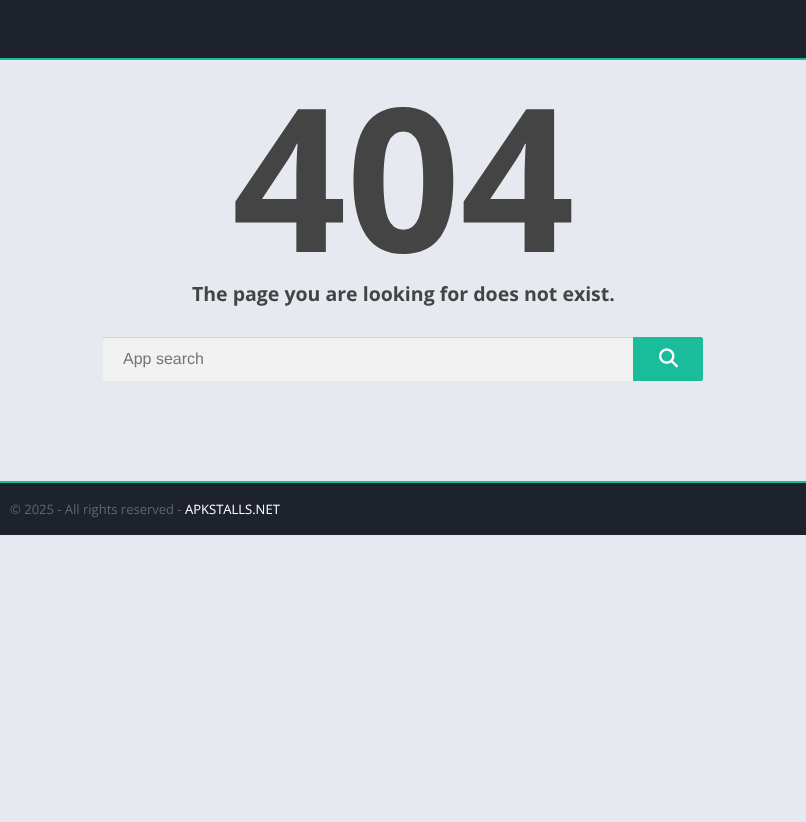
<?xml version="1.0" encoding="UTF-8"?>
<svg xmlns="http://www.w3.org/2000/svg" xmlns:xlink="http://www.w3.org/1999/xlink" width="806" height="822">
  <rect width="100%" height="100%" fill="#e6e9ef" />
  <rect width="806" height="58" fill="#1d222d" />
  <rect y="58" width="806" height="2" fill="#1bbc9b" />
  <rect x="103" y="337" width="600" height="44" rx="2" fill="#f2f2f2" />
  <path d="M 105 338 h 596 c 1 0 2 1 2 2 c 0 -1 0 -3 -2 -3 h -596 l -2 1 v 2 c 0 -1 1 -2 2 -2 z" fill="#d4d4d4" />
  <path d="M 633 337 h 68 c 1 0 2 1 2 2 v 40 c 0 1 -1 2 -2 2 h -68 z" fill="#1bbc9b" />
  <image x="659" y="348" width="19" height="20" xlink:href="image1.png" />
  <rect y="483" width="806" height="52" fill="#1d222d" />
  <rect y="481" width="806" height="2" fill="#1bbc9b" />
  <text x="232" y="252" style="font-family: Open Sans; font-size: 200px; font-weight: bold; fill: #444444">404</text>
  <text x="192" y="301" style="font-family: Open Sans; font-size: 19.5px; font-weight: bold; fill: #444444">The page you are looking for does not exist.</text>
  <text x="123" y="364" style="font-family: Liberation Sans; font-size: 16px; fill: #757575">App search</text>
  <text x="10" y="514" style="font-family: Open Sans; font-size: 13px; fill: #61646c">© 2025 - All rights reserved -</text>
  <text x="185" y="514" style="font-family: Open Sans; font-size: 13px; fill: #ffffff">APKSTALLS.NET</text>
</svg>
